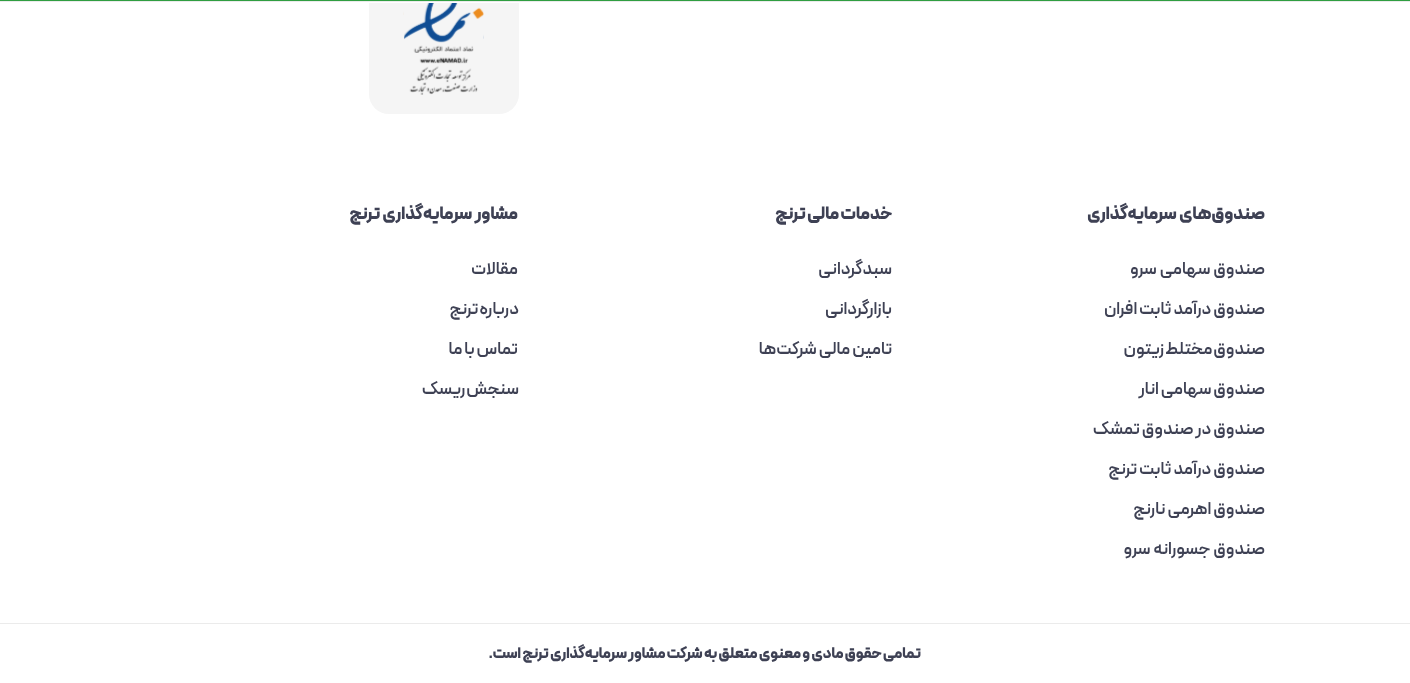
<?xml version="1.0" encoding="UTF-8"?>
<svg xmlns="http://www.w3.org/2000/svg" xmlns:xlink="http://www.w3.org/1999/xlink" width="1410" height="683">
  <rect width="100%" height="100%" fill="#ffffff" />
  <rect x="369" y="-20" width="150" height="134" rx="20" fill="#f5f5f5" />
  <rect x="369" y="2" width="150" height="1" fill="#ffffff" />
  <rect y="1" width="1410" height="1" fill="#ebebeb" />
  <rect width="1410" height="1" fill="#2f9e41" />
  <rect y="623" width="1410" height="1" fill="#ebebeb" />
  <image x="403" y="3" width="81" height="92" xlink:href="image1.png" />
  <text x="1265" y="219" word-spacing="1" style="font-family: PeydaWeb; font-size: 17.5px; font-weight: 900; direction: rtl; fill: #3e4154">صندوق‌های سرمایه‌گذاری</text>
  <text x="1265" y="274" word-spacing="1" style="font-family: PeydaWeb; font-size: 17.5px; font-weight: 600; direction: rtl; fill: #3e4154">صندوق سهامی سرو</text>
  <text x="1265" y="314" style="font-family: PeydaWeb; font-size: 17.5px; font-weight: 600; direction: rtl; fill: #3e4154">صندوق درآمد ثابت افران</text>
  <text x="1265" y="354" word-spacing="-1" style="font-family: PeydaWeb; font-size: 17.5px; font-weight: 600; direction: rtl; fill: #3e4154">صندوق مختلط زیتون</text>
  <text x="1265" y="394" style="font-family: PeydaWeb; font-size: 17.5px; font-weight: 600; direction: rtl; fill: #3e4154">صندوق سهامی انار</text>
  <text x="1265" y="434" style="font-family: PeydaWeb; font-size: 17.5px; font-weight: 600; direction: rtl; fill: #3e4154">صندوق در صندوق تمشک</text>
  <text x="1265" y="474" style="font-family: PeydaWeb; font-size: 17.5px; font-weight: 600; direction: rtl; fill: #3e4154">صندوق درآمد ثابت ترنج</text>
  <text x="1265" y="514" style="font-family: PeydaWeb; font-size: 17.5px; font-weight: 600; direction: rtl; fill: #3e4154">صندوق اهرمی نارنج</text>
  <text x="1265" y="554" word-spacing="1" style="font-family: PeydaWeb; font-size: 17.5px; font-weight: 600; direction: rtl; fill: #3e4154">صندوق جسورانه سرو</text>
  <text x="892" y="219" style="font-family: PeydaWeb; font-size: 17.5px; font-weight: 900; direction: rtl; fill: #3e4154">خدمات مالی ترنج</text>
  <text x="892" y="274" style="font-family: PeydaWeb; font-size: 17.5px; font-weight: 600; direction: rtl; fill: #3e4154">سبدگردانی</text>
  <text x="892" y="314" style="font-family: PeydaWeb; font-size: 17.5px; font-weight: 600; direction: rtl; fill: #3e4154">بازارگردانی</text>
  <text x="892" y="354" style="font-family: PeydaWeb; font-size: 17.5px; font-weight: 600; direction: rtl; fill: #3e4154">تامین مالی شرکت‌ها</text>
  <text x="518" y="219" word-spacing="1" style="font-family: PeydaWeb; font-size: 17.5px; font-weight: 900; direction: rtl; fill: #3e4154">مشاور سرمایه‌گذاری ترنج</text>
  <text x="518" y="274" style="font-family: PeydaWeb; font-size: 17.5px; font-weight: 600; direction: rtl; fill: #3e4154">مقالات</text>
  <text x="519" y="314" word-spacing="-1" style="font-family: PeydaWeb; font-size: 17.5px; font-weight: 600; direction: rtl; fill: #3e4154">درباره ترنج</text>
  <text x="518" y="354" style="font-family: PeydaWeb; font-size: 17.5px; font-weight: 600; direction: rtl; fill: #3e4154">تماس با ما</text>
  <text x="519" y="394" word-spacing="-1" style="font-family: PeydaWeb; font-size: 17.5px; font-weight: 600; direction: rtl; fill: #3e4154">سنجش ریسک</text>
  <text x="921" y="658" word-spacing="0.1" style="font-family: PeydaWeb; font-size: 15px; font-weight: 900; direction: rtl; fill: #3e4154">تمامی حقوق مادی و معنوی متعلق به شرکت مشاور سرمایه‌گذاری ترنج است.</text>
</svg>
